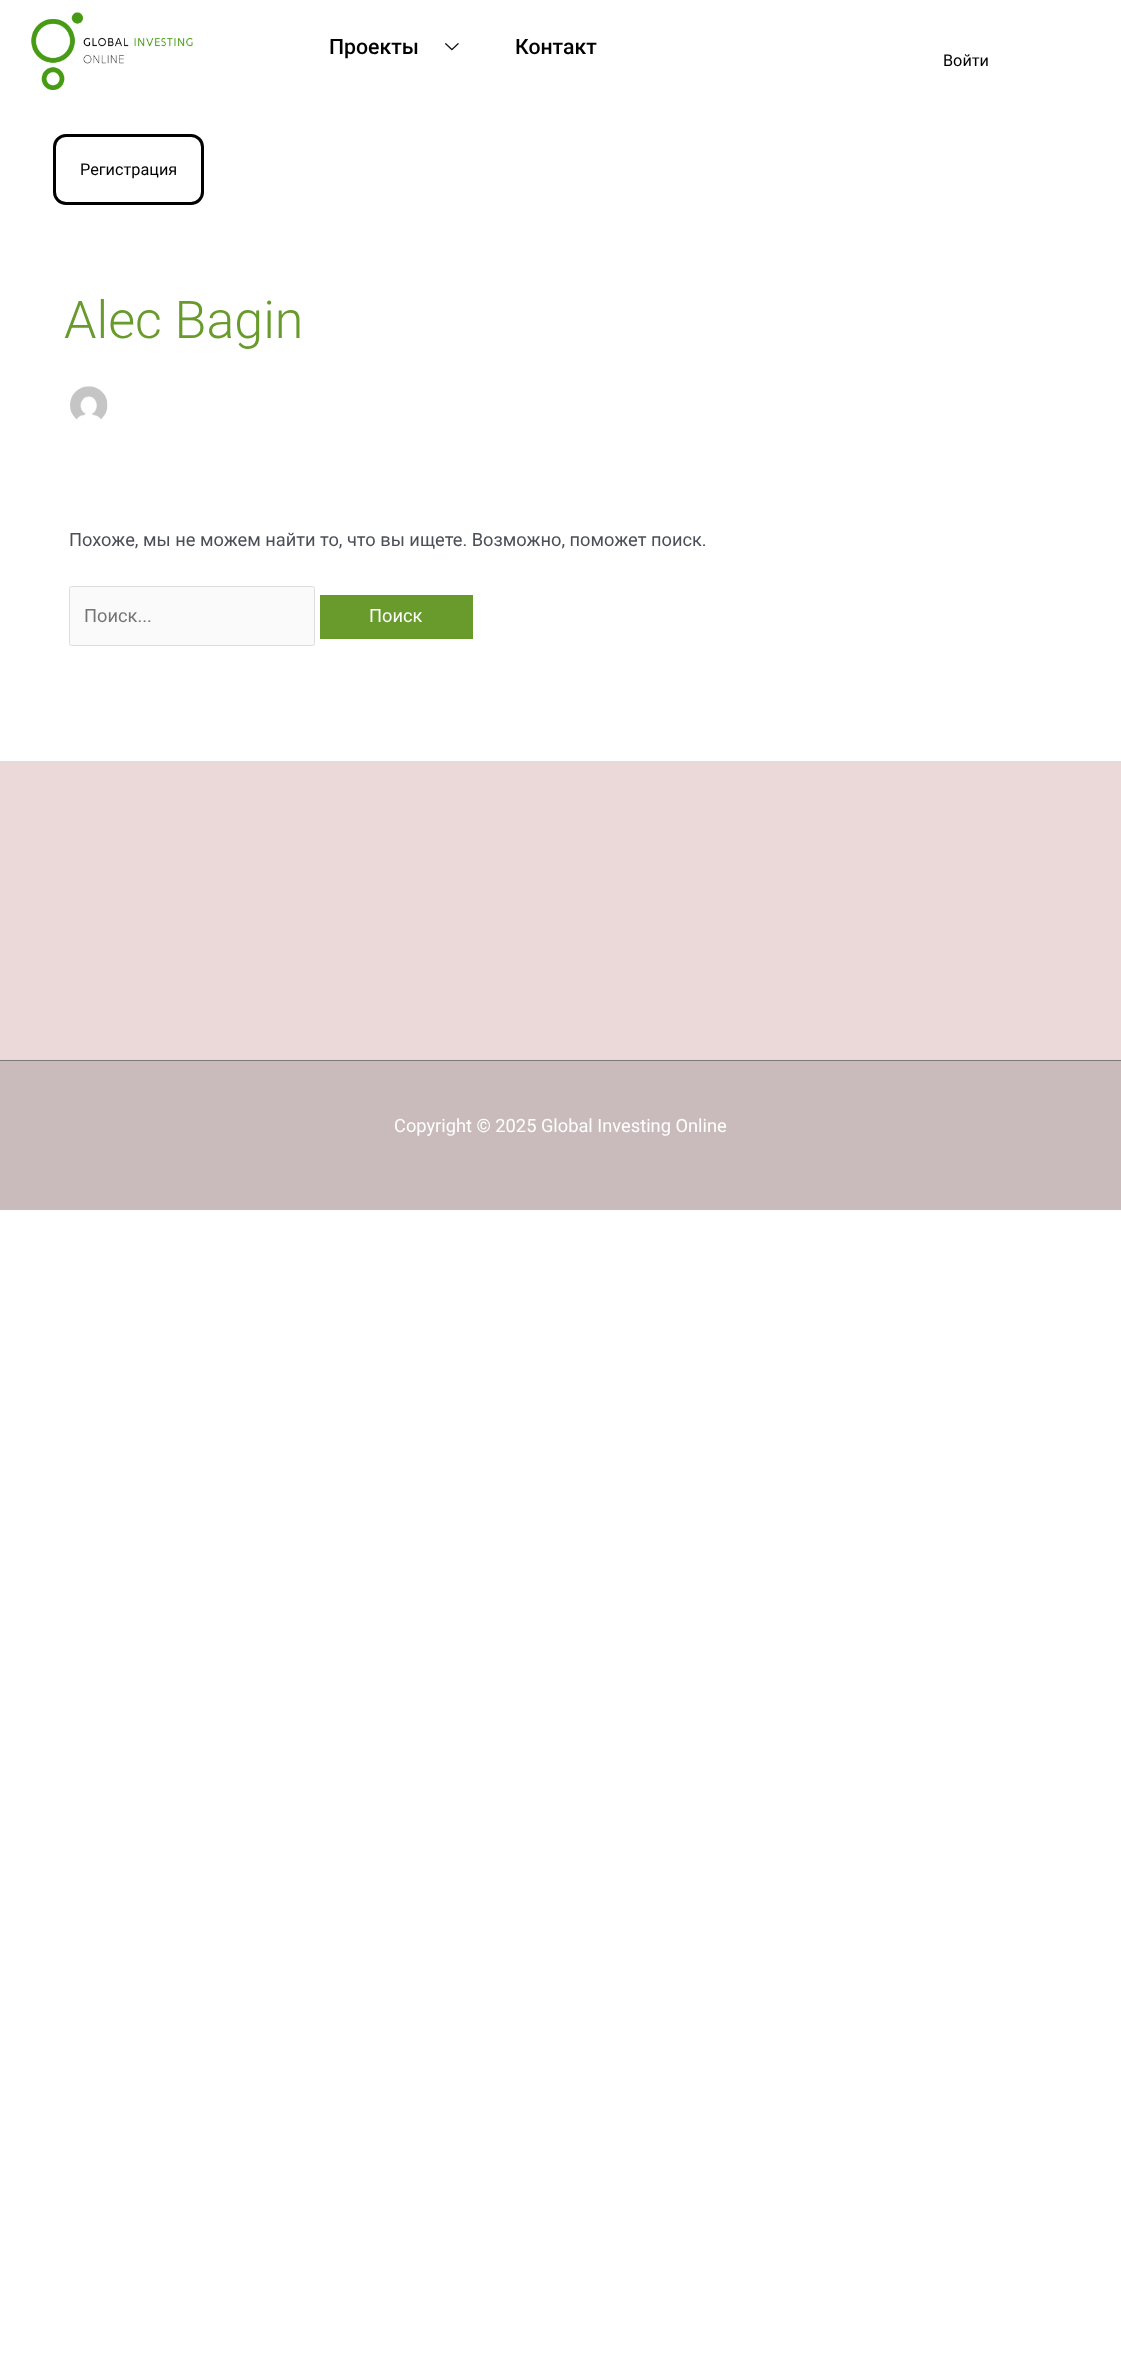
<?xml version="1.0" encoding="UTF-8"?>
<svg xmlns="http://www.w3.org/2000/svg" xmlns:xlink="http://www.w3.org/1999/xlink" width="1121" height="2367">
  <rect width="100%" height="100%" fill="#ffffff" />
  <image x="31" y="12" width="162" height="78" xlink:href="image1.png" />
  <image x="445" y="43" width="14" height="8" xlink:href="image2.png" />
  <rect x="54.5" y="135.5" width="148" height="68" rx="11.5" fill="none" stroke="#000000" stroke-width="3" />
  <image x="70" y="386" width="38" height="34" xlink:href="image3.png" />
  <rect x="69.5" y="586.5" width="245" height="59" rx="2" fill="#fafafa" stroke="#dddddd" />
  <rect x="320" y="595" width="153" height="44" fill="#699b2c" />
  <rect y="761" width="1121" height="299" fill="#ebd9d9" />
  <rect y="1060" width="1121" height="1" fill="#7a7a7a" />
  <rect y="1061" width="1121" height="149" fill="#c9bbbb" />
  <text x="329" y="54" style="font-family: Roboto; font-size: 21.25px; font-weight: 500; fill: #000000">Проекты</text>
  <text x="515" y="54" style="font-family: Roboto; font-size: 21.25px; font-weight: 500; fill: #000000">Контакт</text>
  <text x="943" y="66" style="font-family: Roboto; font-size: 16.25px; fill: #000000">Войти</text>
  <text x="80" y="175" style="font-family: Roboto; font-size: 16.25px; fill: #000000">Регистрация</text>
  <text x="64" y="338" style="font-family: Roboto; font-size: 52px; font-weight: 300; fill: #699b2c">Alec Bagin</text>
  <text x="69" y="546" style="font-family: Roboto; font-size: 18.25px; fill: #4b4f58">Похоже, мы не можем найти то, что вы ищете. Возможно, поможет поиск.</text>
  <text x="84" y="622" style="font-family: Roboto; font-size: 18.25px; fill: #757575">Поиск...</text>
  <text x="369" y="622" style="font-family: Roboto; font-size: 18.25px; fill: #ffffff">Поиск</text>
  <text x="394" y="1132" style="font-family: Roboto; font-size: 18.25px; fill: #ffffff">Copyright © 2025 Global Investing Online</text>
</svg>
